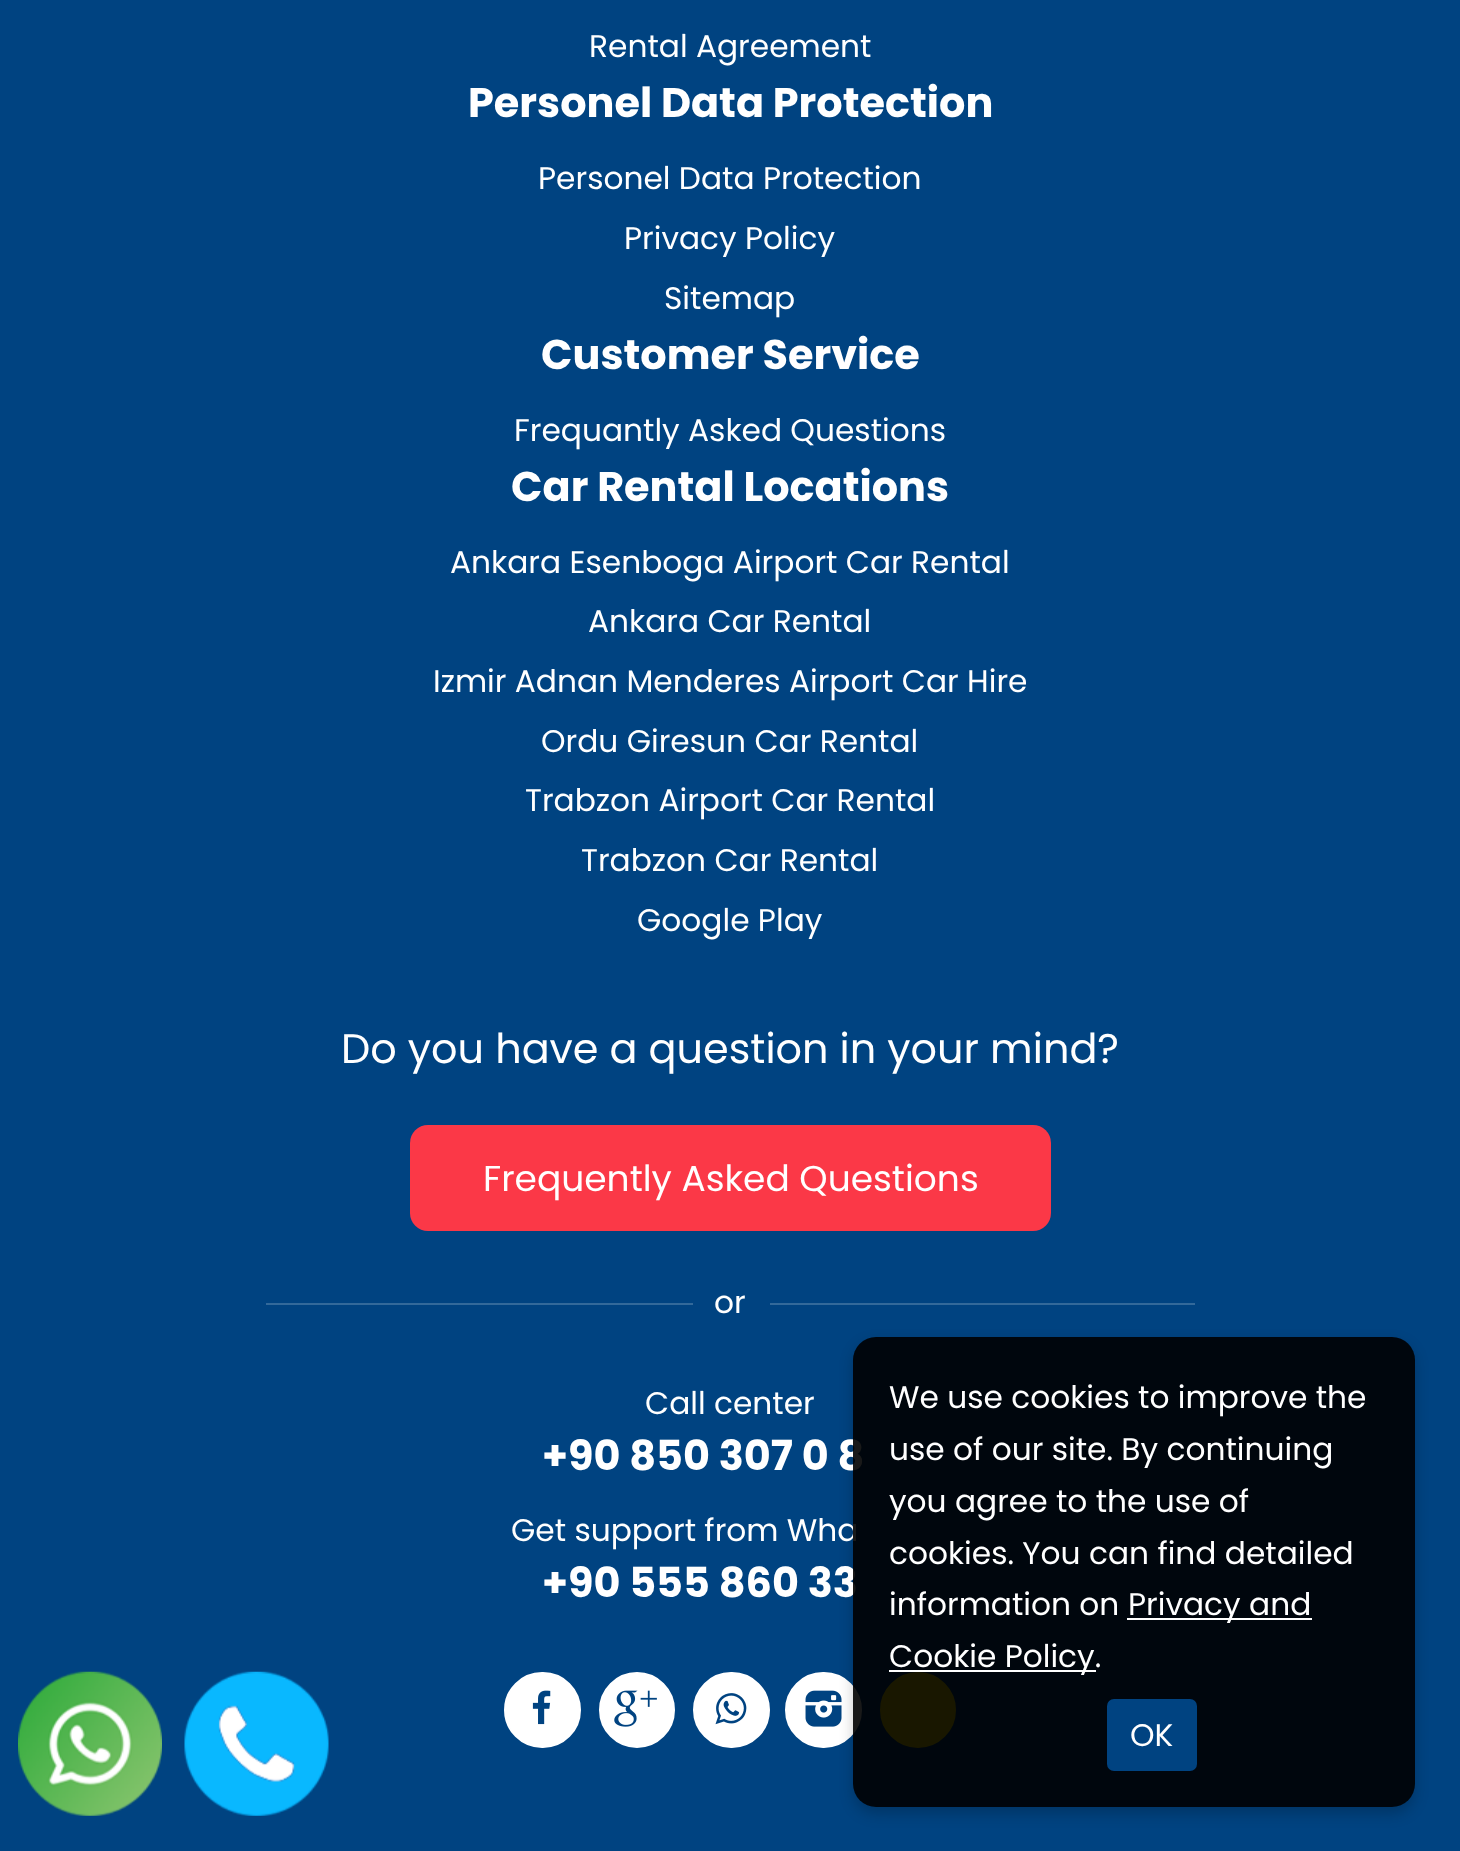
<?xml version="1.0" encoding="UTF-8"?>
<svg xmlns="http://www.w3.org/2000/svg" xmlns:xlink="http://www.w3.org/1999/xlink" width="1460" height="1851">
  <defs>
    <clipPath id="clip1"><path d="M 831 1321 h 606 v 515 h -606 z m 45 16 h 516 c 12.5 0 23 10.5 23 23 v 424 c 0 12.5 -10.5 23 -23 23 h -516 c -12.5 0 -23 -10.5 -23 -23 v -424 c 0 -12.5 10.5 -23 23 -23 z" clip-rule="evenodd" /></clipPath>
  </defs>
  <rect width="100%" height="100%" fill="#004381" />
  <image x="18" y="1671" width="144" height="145" xlink:href="image1.png" />
  <image x="184" y="1671" width="145" height="145" xlink:href="image2.png" />
  <rect x="410" y="1125" width="641" height="106" rx="18" fill="#fb3847" />
  <rect x="266" y="1303" width="929" height="2" fill="#33699a" />
  <rect x="693" y="1303" width="77" height="2" fill="#004381" />
  <rect x="505" y="1673" width="75" height="74" rx="37" fill="#ffffff" stroke="#ffffff" stroke-width="2" />
  <image x="532" y="1690" width="19" height="35" xlink:href="image3.png" />
  <circle cx="637" cy="1710" r="37" fill="#ffffff" stroke="#ffffff" stroke-width="2" />
  <image x="614" y="1690" width="43" height="37" xlink:href="image4.png" />
  <rect x="694" y="1673" width="75" height="74" rx="37" fill="#ffffff" stroke="#ffffff" stroke-width="2" />
  <image x="715" y="1693" width="32" height="32" xlink:href="image5.png" />
  <rect x="786" y="1673" width="75" height="74" rx="37" fill="#ffffff" stroke="#ffffff" stroke-width="2" />
  <image x="805" y="1690" width="37" height="37" xlink:href="image6.png" />
  <circle cx="918" cy="1710" r="37" fill="#ffea00" stroke="#ffea00" stroke-width="2" />
  <g clip-path="url(#clip1)">
    <rect x="853" y="1343" width="562" height="471" rx="23" fill="#000000" fill-opacity="0.2" filter="blur(7px)" />
  </g>
  <text x="589" y="57" style="font-family: Poppins; font-size: 31.25px; fill: #ffffff">Rental Agreement</text>
  <text x="468" y="117" style="font-family: Poppins; font-size: 41.4px; font-weight: bold; fill: #ffffff">Personel Data Protection</text>
  <text x="538" y="189" style="font-family: Poppins; font-size: 31.25px; fill: #ffffff">Personel Data Protection</text>
  <text x="624" y="249" style="font-family: Poppins; font-size: 31.25px; fill: #ffffff">Privacy Policy</text>
  <text x="664" y="309" style="font-family: Poppins; font-size: 31.25px; fill: #ffffff">Sitemap</text>
  <text x="541" y="369" style="font-family: Poppins; font-size: 41.4px; font-weight: bold; fill: #ffffff">Customer Service</text>
  <text x="514" y="441" style="font-family: Poppins; font-size: 31.25px; fill: #ffffff">Frequantly Asked Questions</text>
  <text x="511" y="501" style="font-family: Poppins; font-size: 41.4px; font-weight: bold; fill: #ffffff">Car Rental Locations</text>
  <text x="450" y="573" style="font-family: Poppins; font-size: 31.25px; fill: #ffffff">Ankara Esenboga Airport Car Rental</text>
  <text x="588" y="632" style="font-family: Poppins; font-size: 31.25px; fill: #ffffff">Ankara Car Rental</text>
  <text x="433" y="692" style="font-family: Poppins; font-size: 31.25px; fill: #ffffff">Izmir Adnan Menderes Airport Car Hire</text>
  <text x="541" y="752" style="font-family: Poppins; font-size: 31.25px; fill: #ffffff">Ordu Giresun Car Rental</text>
  <text x="525" y="811" style="font-family: Poppins; font-size: 31.25px; fill: #ffffff">Trabzon Airport Car Rental</text>
  <text x="581" y="871" style="font-family: Poppins; font-size: 31.25px; fill: #ffffff">Trabzon Car Rental</text>
  <text x="637" y="931" style="font-family: Poppins; font-size: 31.25px; fill: #ffffff">Google Play</text>
  <text x="341" y="1063" style="font-family: Poppins; font-size: 41.4px; fill: #ffffff">Do you have a question in your mind?</text>
  <text x="483" y="1191" style="font-family: Poppins; font-size: 36px; fill: #ffffff">Frequently Asked Questions</text>
  <text x="714" y="1313" style="font-family: Poppins; font-size: 31.25px; fill: #ffffff">or</text>
  <text x="645" y="1414" style="font-family: Poppins; font-size: 31.25px; fill: #ffffff">Call center</text>
  <text x="542" y="1470" style="font-family: Poppins; font-size: 41.4px; font-weight: bold; fill: #ffffff">+90 850 307 0 8</text>
  <text x="511" y="1541" style="font-family: Poppins; font-size: 31.25px; fill: #ffffff">Get support from Wha</text>
  <text x="542" y="1597" style="font-family: Poppins; font-size: 41.4px; font-weight: bold; fill: #ffffff">+90 555 860 33</text>
  <rect x="853" y="1337" width="562" height="470" rx="23" fill="#000000" fill-opacity="0.9" />
  <text x="889" y="1408" style="font-family: Poppins; font-size: 31.25px; fill: #ffffff">We use cookies to improve the</text>
  <text x="889" y="1460" style="font-family: Poppins; font-size: 31.25px; fill: #ffffff">use of our site. By continuing</text>
  <text x="889" y="1512" style="font-family: Poppins; font-size: 31.25px; fill: #ffffff">you agree to the use of</text>
  <text x="889" y="1564" style="font-family: Poppins; font-size: 31.25px; fill: #ffffff">cookies. You can find detailed</text>
  <text x="889" y="1615" style="font-family: Poppins; font-size: 31.25px; fill: #ffffff">information on</text>
  <rect x="1127" y="1618" width="185" height="2" fill="#ffffff" />
  <text x="1128" y="1615" style="font-family: Poppins; font-size: 31.25px; fill: #ffffff">Privacy and</text>
  <rect x="889" y="1670" width="207" height="2" fill="#ffffff" />
  <text x="889" y="1667" style="font-family: Poppins; font-size: 31.25px; fill: #ffffff">Cookie Policy.</text>
  <rect x="1107" y="1699" width="90" height="72" rx="7" fill="#004381" />
  <text x="1130" y="1746" style="font-family: Poppins; font-size: 31.25px; fill: #ffffff">OK</text>
</svg>
